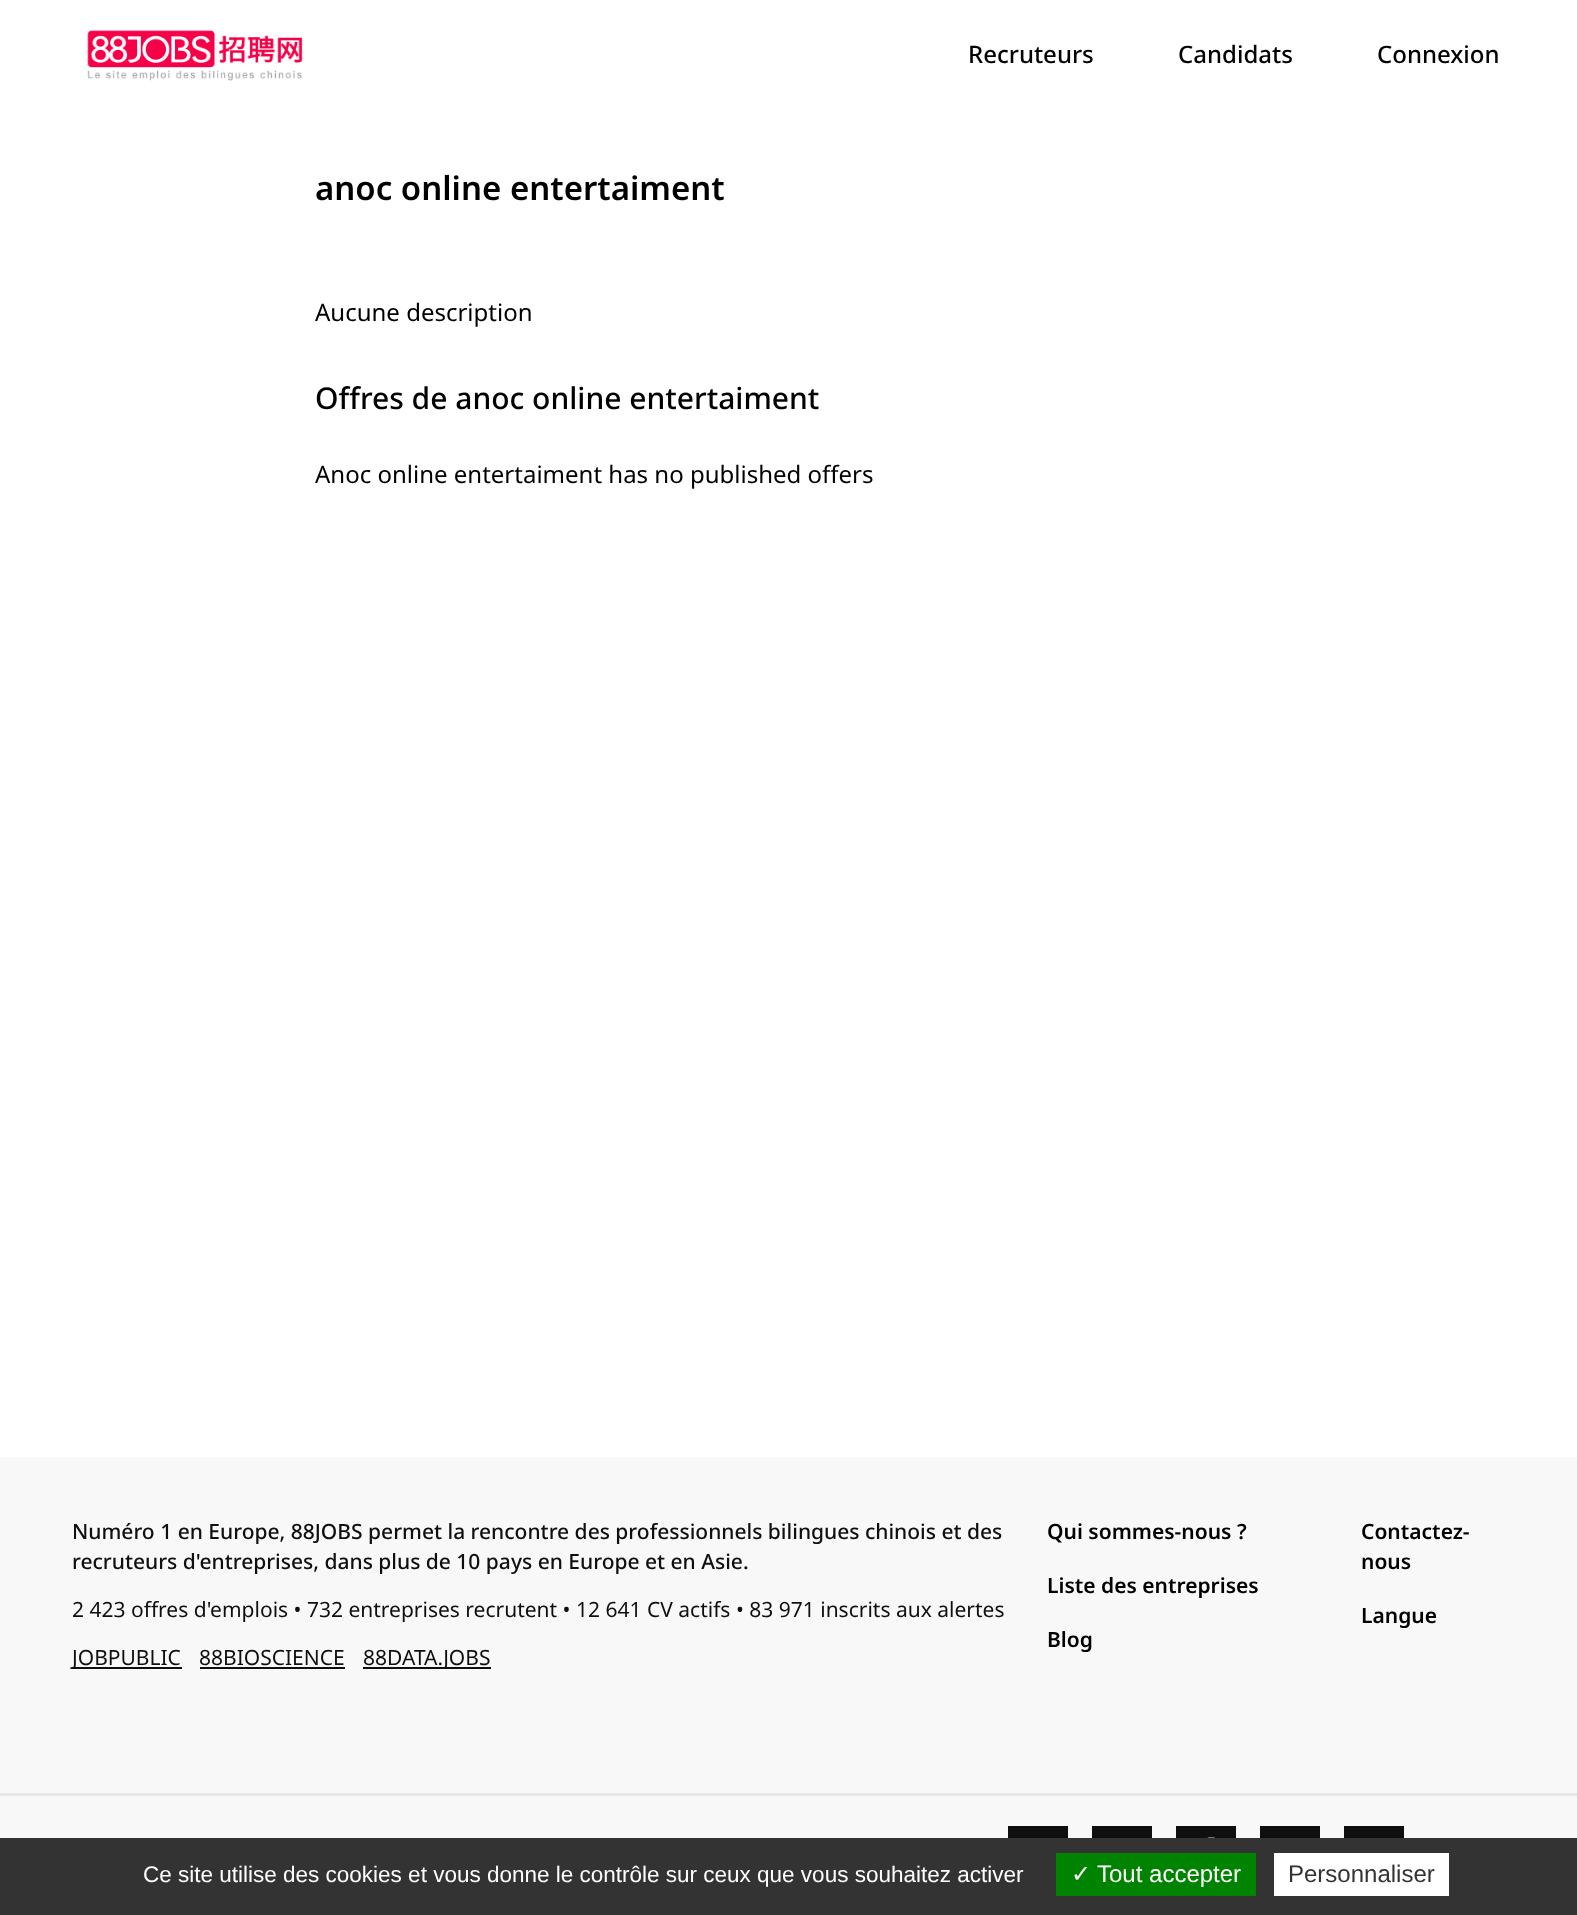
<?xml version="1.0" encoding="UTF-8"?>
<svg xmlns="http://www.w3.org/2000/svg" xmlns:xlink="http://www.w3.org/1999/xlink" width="1577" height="1915">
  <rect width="100%" height="100%" fill="#ffffff" />
  <image x="87" y="30" width="216" height="51" xlink:href="image1.png" />
  <rect y="1457" width="1577" height="381" fill="#f8f8f8" />
  <rect x="72" y="1667" width="110" height="2" fill="#0f0f0f" />
  <rect x="200" y="1667" width="145" height="2" fill="#0f0f0f" />
  <rect x="363" y="1667" width="128" height="2" fill="#0f0f0f" />
  <rect y="1793" width="1577" height="3" fill="#e8e8e8" />
  <image x="1008" y="1826" width="60" height="12" xlink:href="image2.png" />
  <image x="1092" y="1826" width="60" height="12" xlink:href="image2.png" />
  <image x="1176" y="1826" width="60" height="12" xlink:href="image3.png" />
  <image x="1260" y="1826" width="60" height="12" xlink:href="image2.png" />
  <image x="1344" y="1826" width="60" height="12" xlink:href="image2.png" />
  <rect y="1838" width="1577" height="77" fill="#333333" />
  <rect x="1056" y="1853" width="200" height="43" fill="#008300" />
  <rect x="1274" y="1853" width="175" height="43" fill="#ffffff" />
  <text x="968" y="63" style="font-family: Noto Sans; font-size: 24px; font-weight: 500; fill: #000000">Recruteurs</text>
  <text x="1178" y="63" style="font-family: Noto Sans; font-size: 24px; font-weight: 500; fill: #000000">Candidats</text>
  <text x="1377" y="63" style="font-family: Noto Sans; font-size: 24px; font-weight: 500; fill: #000000">Connexion</text>
  <text x="315" y="200" style="font-family: Noto Sans; font-size: 33px; font-weight: 600; fill: #000000">anoc online entertaiment</text>
  <text x="315" y="321" style="font-family: Noto Sans; font-size: 24px; fill: #000000">Aucune description</text>
  <text x="315" y="409" style="font-family: Noto Sans; font-size: 30px; font-weight: 500; fill: #000000">Offres de anoc online entertaiment</text>
  <text x="315" y="483" style="font-family: Noto Sans; font-size: 24px; fill: #000000">Anoc online entertaiment has no published offers</text>
  <text x="72" y="1539" style="font-family: Noto Sans; font-size: 21px; font-weight: 500; fill: #0f0f0f">Numéro 1 en Europe, 88JOBS permet la rencontre des professionnels bilingues chinois et des</text>
  <text x="72" y="1569" style="font-family: Noto Sans; font-size: 21px; font-weight: 500; fill: #0f0f0f">recruteurs d'entreprises, dans plus de 10 pays en Europe et en Asie.</text>
  <text x="72" y="1617" style="font-family: Noto Sans; font-size: 21px; fill: #0f0f0f">2 423 offres d'emplois • 732 entreprises recrutent • 12 641 CV actifs • 83 971 inscrits aux alertes</text>
  <text x="72" y="1665" style="font-family: Noto Sans; font-size: 21px; fill: #0f0f0f">JOBPUBLIC</text>
  <text x="199" y="1665" style="font-family: Noto Sans; font-size: 21px; fill: #0f0f0f">88BIOSCIENCE</text>
  <text x="363" y="1665" style="font-family: Noto Sans; font-size: 21px; fill: #0f0f0f">88DATA.JOBS</text>
  <text x="1047" y="1539" style="font-family: Noto Sans; font-size: 21px; font-weight: 600; fill: #000000">Qui sommes-nous ?</text>
  <text x="1047" y="1593" style="font-family: Noto Sans; font-size: 21px; font-weight: 600; fill: #000000">Liste des entreprises</text>
  <text x="1047" y="1647" style="font-family: Noto Sans; font-size: 21px; font-weight: 600; fill: #000000">Blog</text>
  <text x="1361" y="1539" style="font-family: Noto Sans; font-size: 21px; font-weight: 600; fill: #000000">Contactez-</text>
  <text x="1361" y="1569" style="font-family: Noto Sans; font-size: 21px; font-weight: 600; fill: #000000">nous</text>
  <text x="1361" y="1623" style="font-family: Noto Sans; font-size: 21px; font-weight: 600; fill: #000000">Langue</text>
  <text x="143" y="1882" style="font-family: Liberation Sans; font-size: 22.5px; fill: #ffffff">Ce site utilise des cookies et vous donne le contrôle sur ceux que vous souhaitez activer</text>
  <text x="1071" y="1882" style="font-family: DejaVu Sans; font-size: 24px; fill: #ffffff">✓</text>
  <text x="1097" y="1882" style="font-family: Liberation Sans; font-size: 24px; fill: #ffffff">Tout accepter</text>
  <text x="1288" y="1882" style="font-family: Liberation Sans; font-size: 24px; fill: #333333">Personnaliser</text>
</svg>
